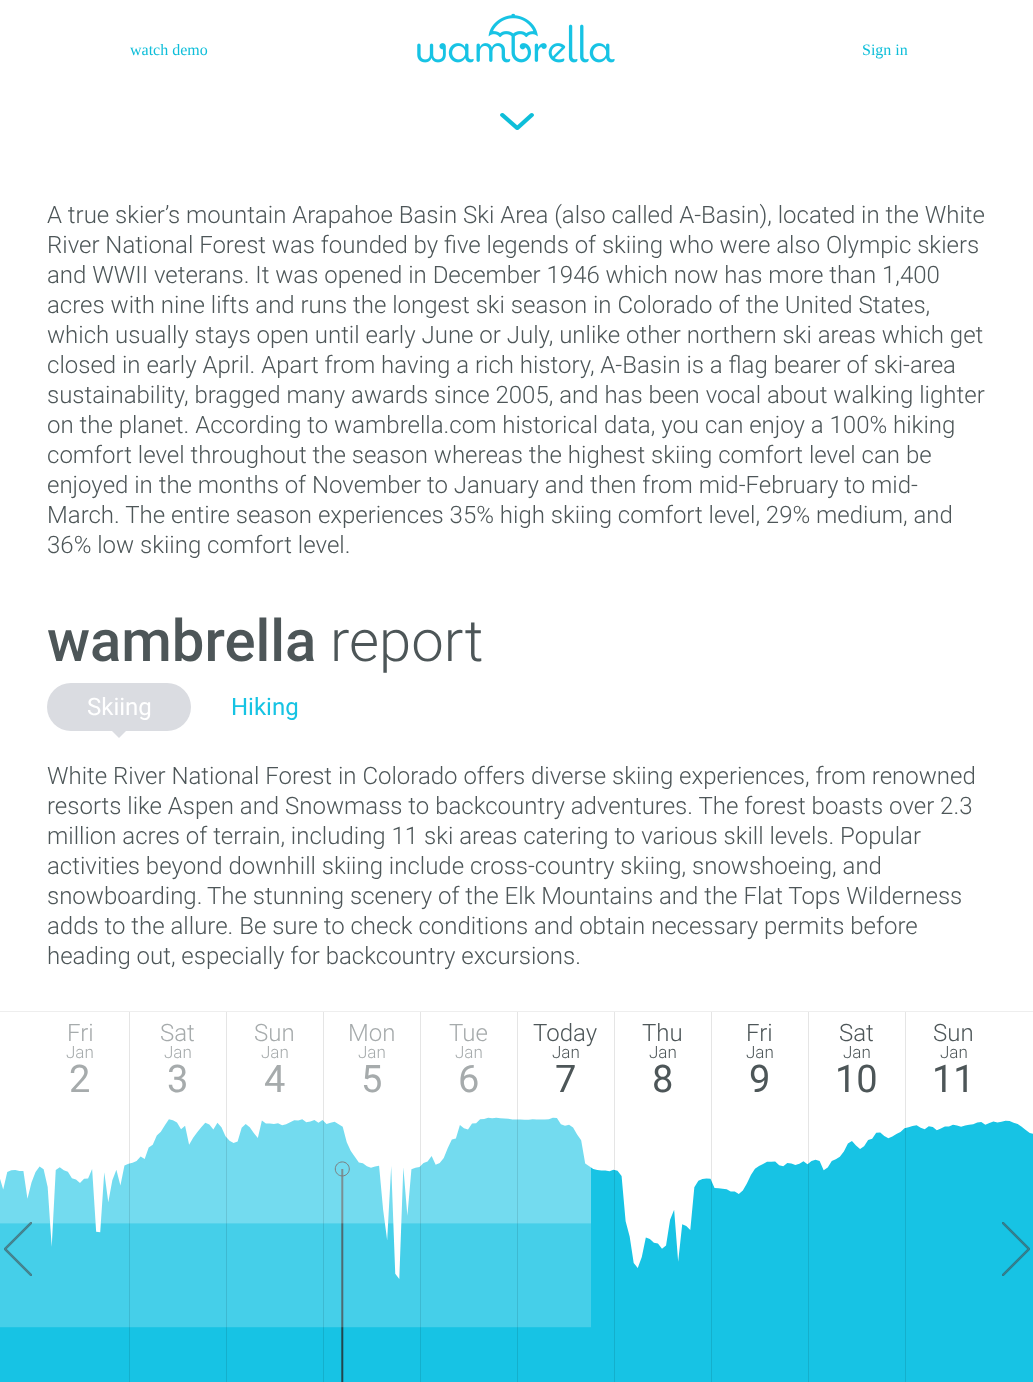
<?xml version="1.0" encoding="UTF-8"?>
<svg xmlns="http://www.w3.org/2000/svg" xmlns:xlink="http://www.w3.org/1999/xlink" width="1033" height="1382">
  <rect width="100%" height="100%" fill="#ffffff" />
  <image x="417" y="13" width="198" height="50" xlink:href="image1.png" />
  <image x="500" y="113" width="34" height="17" xlink:href="image2.png" />
  <rect x="47" y="683" width="144" height="48" rx="24" fill="#dadce1" />
  <path d="M 112 731 h 14 l -7 7 z" fill="#dadce1" />
  <rect y="1011" width="1033" height="1" fill="#eeeeee" />
  <image x="0" y="1117" width="1033" height="265" xlink:href="image5.png" />
  <rect x="129" y="1012" width="1" height="370" fill="#000000" fill-opacity="0.1" />
  <rect x="226" y="1012" width="1" height="370" fill="#000000" fill-opacity="0.1" />
  <rect x="323" y="1012" width="1" height="370" fill="#000000" fill-opacity="0.1" />
  <rect x="420" y="1012" width="1" height="370" fill="#000000" fill-opacity="0.1" />
  <rect x="517" y="1012" width="1" height="370" fill="#000000" fill-opacity="0.1" />
  <rect x="614" y="1012" width="1" height="370" fill="#000000" fill-opacity="0.1" />
  <rect x="711" y="1012" width="1" height="370" fill="#000000" fill-opacity="0.1" />
  <rect x="808" y="1012" width="1" height="370" fill="#000000" fill-opacity="0.1" />
  <rect x="905" y="1012" width="1" height="370" fill="#000000" fill-opacity="0.1" />
  <image x="4" y="1222" width="28" height="54" xlink:href="image3.png" />
  <image x="1002" y="1222" width="28" height="54" xlink:href="image4.png" />
  <text x="130" y="55" style="font-family: Liberation Serif; font-size: 16px; fill: #0ebed9">watch demo</text>
  <text x="862" y="55" style="font-family: Liberation Serif; font-size: 16px; fill: #0ebed9">Sign in</text>
  <text x="47" y="223" style="font-family: Roboto; font-size: 24px; font-weight: 300; fill: #4d5658">A true skier’s mountain Arapahoe Basin Ski Area (also called A-Basin), located in the White</text>
  <text x="47" y="253" style="font-family: Roboto; font-size: 24px; font-weight: 300; fill: #4d5658">River National Forest was founded by five legends of skiing who were also Olympic skiers</text>
  <text x="47" y="283" style="font-family: Roboto; font-size: 24px; font-weight: 300; fill: #4d5658">and WWII veterans. It was opened in December 1946 which now has more than 1,400</text>
  <text x="47" y="313" style="font-family: Roboto; font-size: 24px; font-weight: 300; fill: #4d5658">acres with nine lifts and runs the longest ski season in Colorado of the United States,</text>
  <text x="47" y="343" style="font-family: Roboto; font-size: 24px; font-weight: 300; fill: #4d5658">which usually stays open until early June or July, unlike other northern ski areas which get</text>
  <text x="47" y="373" style="font-family: Roboto; font-size: 24px; font-weight: 300; fill: #4d5658">closed in early April. Apart from having a rich history, A-Basin is a flag bearer of ski-area</text>
  <text x="47" y="403" style="font-family: Roboto; font-size: 24px; font-weight: 300; fill: #4d5658">sustainability, bragged many awards since 2005, and has been vocal about walking lighter</text>
  <text x="47" y="433" style="font-family: Roboto; font-size: 24px; font-weight: 300; fill: #4d5658">on the planet. According to wambrella.com historical data, you can enjoy a 100% hiking</text>
  <text x="47" y="463" style="font-family: Roboto; font-size: 24px; font-weight: 300; fill: #4d5658">comfort level throughout the season whereas the highest skiing comfort level can be</text>
  <text x="47" y="493" style="font-family: Roboto; font-size: 24px; font-weight: 300; fill: #4d5658">enjoyed in the months of November to January and then from mid-February to mid-</text>
  <text x="47" y="523" style="font-family: Roboto; font-size: 24px; font-weight: 300; fill: #4d5658">March. The entire season experiences 35% high skiing comfort level, 29% medium, and</text>
  <text x="47" y="553" style="font-family: Roboto; font-size: 24px; font-weight: 300; fill: #4d5658">36% low skiing comfort level.</text>
  <text x="47" y="661" style="font-family: Roboto; font-size: 58px; font-weight: 500; fill: #4d5658">wambrella</text>
  <text x="330" y="661" style="font-family: Roboto; font-size: 58px; font-weight: 300; fill: #4d5658">report</text>
  <text x="87" y="715" style="font-family: Roboto; font-size: 24px; fill: #ffffff">Skiing</text>
  <text x="231" y="715" style="font-family: Roboto; font-size: 24px; fill: #16c3e3">Hiking</text>
  <text x="47" y="784" style="font-family: Roboto; font-size: 24px; font-weight: 300; fill: #4d5658">White River National Forest in Colorado offers diverse skiing experiences, from renowned</text>
  <text x="47" y="814" style="font-family: Roboto; font-size: 24px; font-weight: 300; fill: #4d5658">resorts like Aspen and Snowmass to backcountry adventures. The forest boasts over 2.3</text>
  <text x="47" y="844" style="font-family: Roboto; font-size: 24px; font-weight: 300; fill: #4d5658">million acres of terrain, including 11 ski areas catering to various skill levels. Popular</text>
  <text x="47" y="874" style="font-family: Roboto; font-size: 24px; font-weight: 300; fill: #4d5658">activities beyond downhill skiing include cross-country skiing, snowshoeing, and</text>
  <text x="47" y="904" style="font-family: Roboto; font-size: 24px; font-weight: 300; fill: #4d5658">snowboarding.</text>
  <text x="207" y="904" style="font-family: Roboto; font-size: 24px; font-weight: 300; fill: #4d5658">The stunning scenery of the Elk Mountains and the Flat Tops Wilderness</text>
  <text x="47" y="934" style="font-family: Roboto; font-size: 24px; font-weight: 300; fill: #4d5658">adds to the allure. Be sure to check conditions and obtain necessary permits before</text>
  <text x="47" y="964" style="font-family: Roboto; font-size: 24px; font-weight: 300; fill: #4d5658">heading out, especially for backcountry excursions.</text>
  <text x="67" y="1041" style="font-family: Roboto; font-size: 24px; font-weight: 300; fill: #a6abac">Fri</text>
  <text x="66" y="1058" style="font-family: Roboto; font-size: 17px; font-weight: 300; fill: #a6abac">Jan</text>
  <text x="69" y="1092" style="font-family: Roboto; font-size: 38px; fill: #a6abac">2</text>
  <text x="160" y="1041" style="font-family: Roboto; font-size: 24px; font-weight: 300; fill: #a6abac">Sat</text>
  <text x="164" y="1058" style="font-family: Roboto; font-size: 17px; font-weight: 300; fill: #a6abac">Jan</text>
  <text x="167" y="1092" style="font-family: Roboto; font-size: 38px; fill: #a6abac">3</text>
  <text x="254" y="1041" style="font-family: Roboto; font-size: 24px; font-weight: 300; fill: #a6abac">Sun</text>
  <text x="261" y="1058" style="font-family: Roboto; font-size: 17px; font-weight: 300; fill: #a6abac">Jan</text>
  <text x="264" y="1092" style="font-family: Roboto; font-size: 38px; fill: #a6abac">4</text>
  <text x="348" y="1041" style="font-family: Roboto; font-size: 24px; font-weight: 300; fill: #a6abac">Mon</text>
  <text x="358" y="1058" style="font-family: Roboto; font-size: 17px; font-weight: 300; fill: #a6abac">Jan</text>
  <text x="361" y="1092" style="font-family: Roboto; font-size: 38px; fill: #a6abac">5</text>
  <text x="449" y="1041" style="font-family: Roboto; font-size: 24px; font-weight: 300; fill: #a6abac">Tue</text>
  <text x="455" y="1058" style="font-family: Roboto; font-size: 17px; font-weight: 300; fill: #a6abac">Jan</text>
  <text x="458" y="1092" style="font-family: Roboto; font-size: 38px; fill: #a6abac">6</text>
  <text x="533" y="1041" style="font-family: Roboto; font-size: 24px; font-weight: 300; fill: #4d5658">Today</text>
  <text x="552" y="1058" style="font-family: Roboto; font-size: 17px; font-weight: 300; fill: #4d5658">Jan</text>
  <text x="555" y="1092" style="font-family: Roboto; font-size: 38px; fill: #4d5658">7</text>
  <text x="642" y="1041" style="font-family: Roboto; font-size: 24px; font-weight: 300; fill: #4d5658">Thu</text>
  <text x="649" y="1058" style="font-family: Roboto; font-size: 17px; font-weight: 300; fill: #4d5658">Jan</text>
  <text x="652" y="1092" style="font-family: Roboto; font-size: 38px; fill: #4d5658">8</text>
  <text x="746" y="1041" style="font-family: Roboto; font-size: 24px; font-weight: 300; fill: #4d5658">Fri</text>
  <text x="746" y="1058" style="font-family: Roboto; font-size: 17px; font-weight: 300; fill: #4d5658">Jan</text>
  <text x="749" y="1092" style="font-family: Roboto; font-size: 38px; fill: #4d5658">9</text>
  <text x="839" y="1041" style="font-family: Roboto; font-size: 24px; font-weight: 300; fill: #4d5658">Sat</text>
  <text x="843" y="1058" style="font-family: Roboto; font-size: 17px; font-weight: 300; fill: #4d5658">Jan</text>
  <text x="835" y="1092" style="font-family: Roboto; font-size: 38px; fill: #4d5658">10</text>
  <text x="933" y="1041" style="font-family: Roboto; font-size: 24px; font-weight: 300; fill: #4d5658">Sun</text>
  <text x="940" y="1058" style="font-family: Roboto; font-size: 17px; font-weight: 300; fill: #4d5658">Jan</text>
  <text x="932" y="1092" style="font-family: Roboto; font-size: 38px; fill: #4d5658">11</text>
</svg>
